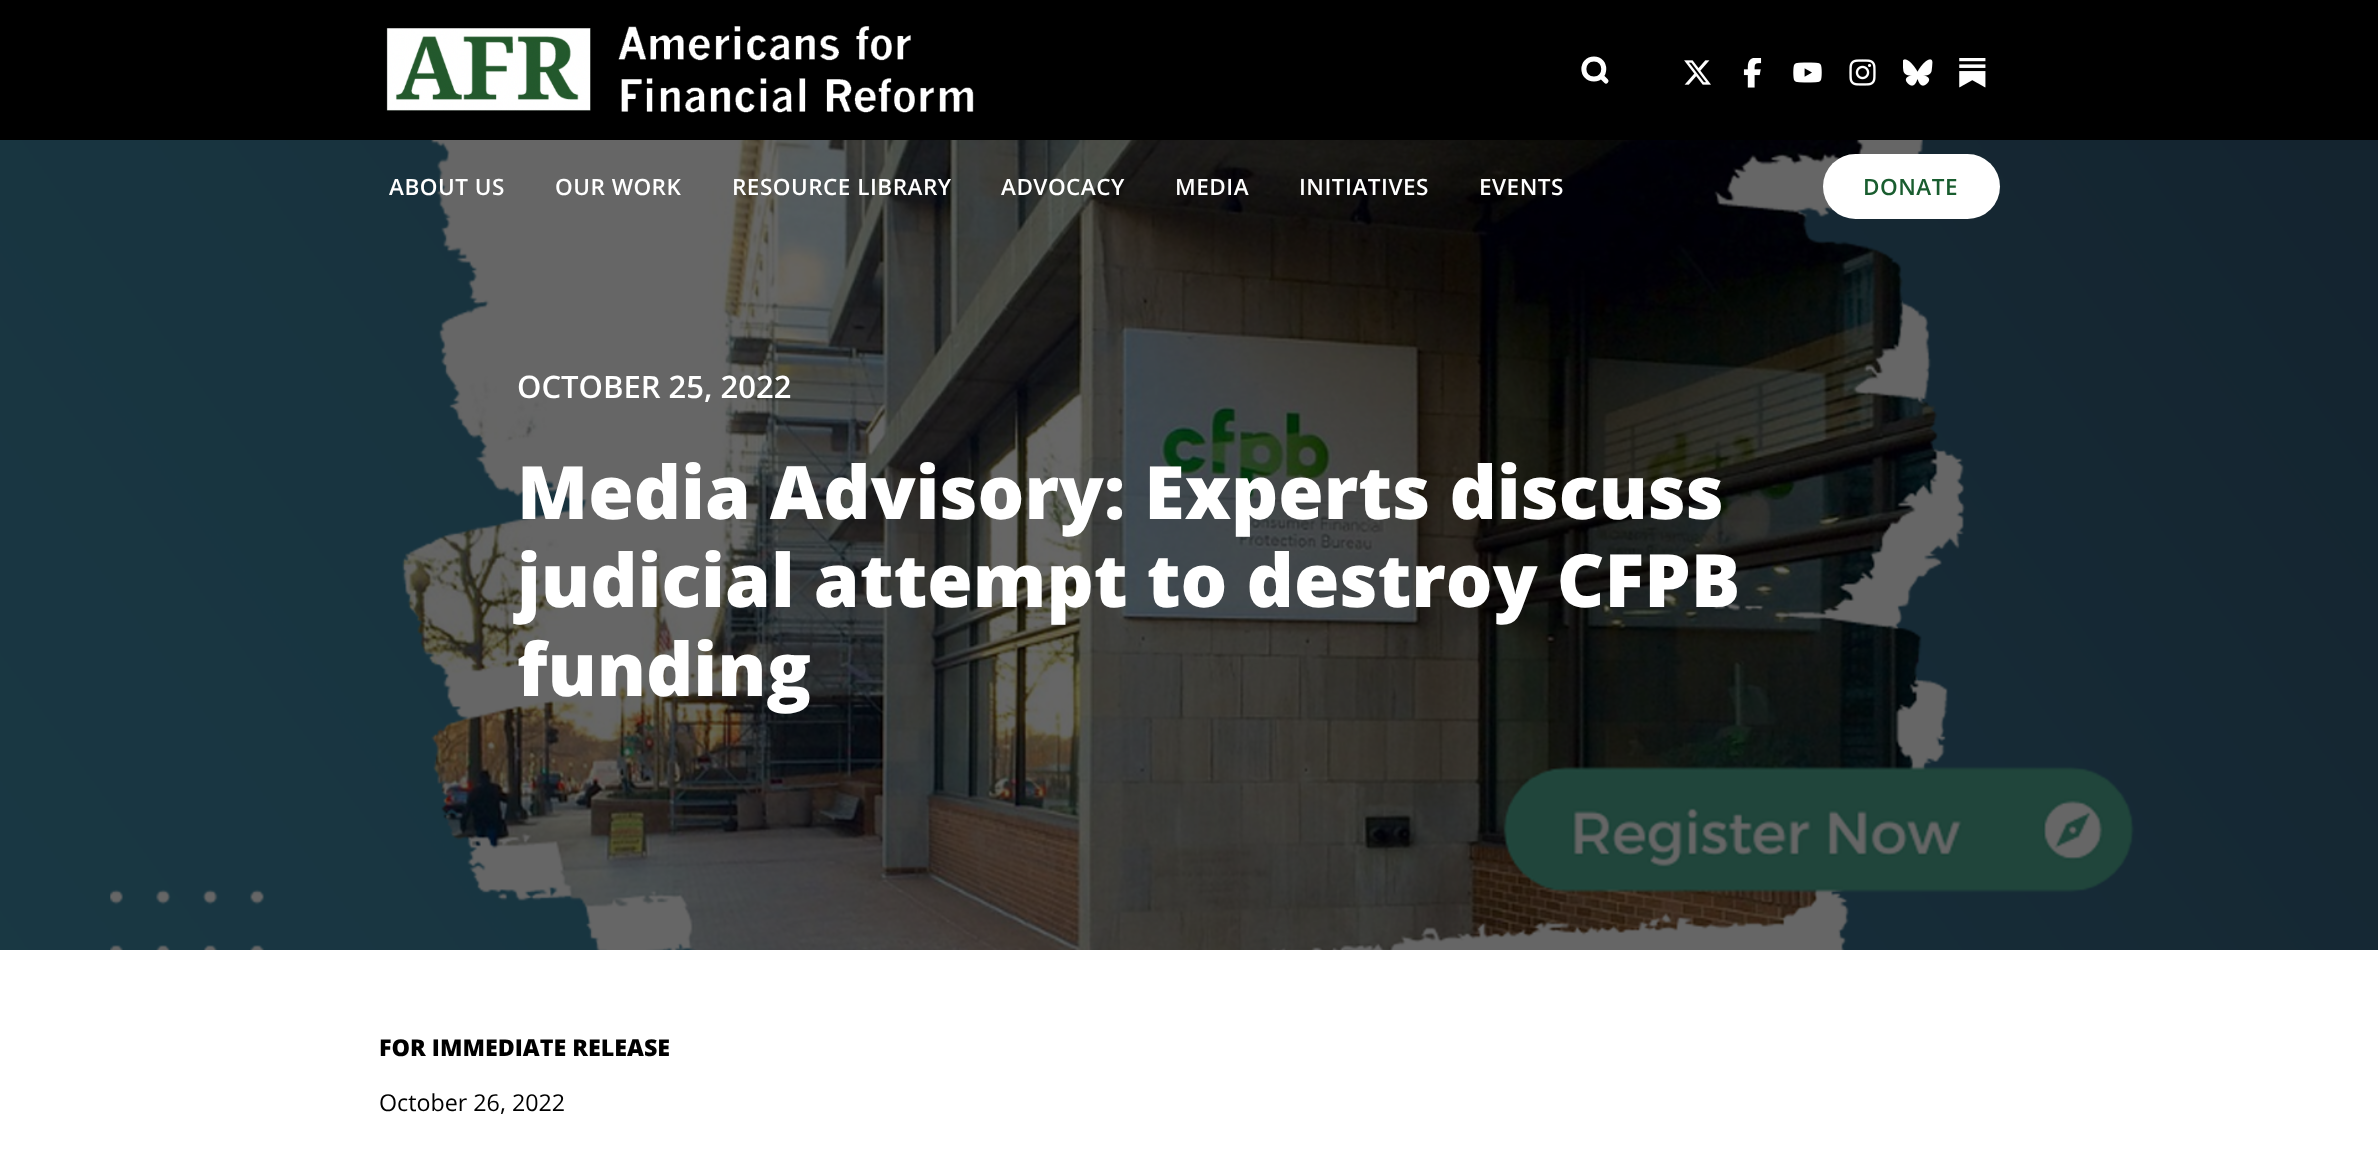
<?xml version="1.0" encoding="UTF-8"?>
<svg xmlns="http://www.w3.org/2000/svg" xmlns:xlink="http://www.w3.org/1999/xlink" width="2378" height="1153">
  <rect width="100%" height="100%" fill="#ffffff" />
  <rect width="2378" height="140" fill="#000000" />
  <image x="386" y="26" width="588" height="87" xlink:href="image1.png" />
  <path d="M 1594 79 c 13 0 13 -20 0 -20 c -13.5 0 -13.5 20 0 20 m 12 2 l -5 -5" fill="none" stroke="#ffffff" stroke-width="5" stroke-linecap="round" stroke-linejoin="round" />
  <image x="1684" y="60" width="27" height="25" xlink:href="image2.png" />
  <image x="1743" y="58" width="19" height="30" xlink:href="image3.png" />
  <image x="1793" y="62" width="29" height="21" xlink:href="image4.png" />
  <image x="1849" y="59" width="27" height="27" xlink:href="image5.png" />
  <image x="1903" y="59" width="30" height="27" xlink:href="image6.png" />
  <image x="1959" y="58" width="27" height="30" xlink:href="image7.png" />
  <image x="0" y="140" width="2378" height="810" xlink:href="image8.png" />
  <rect x="1823" y="154" width="177" height="65" rx="32.5" fill="#ffffff" />
  <text x="389" y="195" style="font-family: Open Sans; font-size: 22.5px; font-weight: 600; letter-spacing: 0.5px; fill: #ffffff">ABOUT US</text>
  <text x="555" y="195" style="font-family: Open Sans; font-size: 22.5px; font-weight: 600; letter-spacing: 0.5px; fill: #ffffff">OUR WORK</text>
  <text x="732" y="195" style="font-family: Open Sans; font-size: 22.5px; font-weight: 600; letter-spacing: 0.5px; fill: #ffffff">RESOURCE LIBRARY</text>
  <text x="1001" y="195" style="font-family: Open Sans; font-size: 22.5px; font-weight: 600; letter-spacing: 0.5px; fill: #ffffff">ADVOCACY</text>
  <text x="1175" y="195" style="font-family: Open Sans; font-size: 22.5px; font-weight: 600; letter-spacing: 0.5px; fill: #ffffff">MEDIA</text>
  <text x="1299" y="195" style="font-family: Open Sans; font-size: 22.5px; font-weight: 600; letter-spacing: 0.5px; fill: #ffffff">INITIATIVES</text>
  <text x="1479" y="195" style="font-family: Open Sans; font-size: 22.5px; font-weight: 600; letter-spacing: 0.5px; fill: #ffffff">EVENTS</text>
  <text x="1863" y="195" style="font-family: Open Sans; font-size: 22.5px; font-weight: 600; letter-spacing: 0.5px; fill: #195d2f">DONATE</text>
  <text x="517" y="398" style="font-family: Open Sans; font-size: 31px; font-weight: 600; fill: #ffffff">OCTOBER 25, 2022</text>
  <text x="517" y="519" style="font-family: Open Sans; font-size: 73.6px; font-weight: 800; fill: #ffffff">Media Advisory: Experts discuss</text>
  <text x="517" y="607" style="font-family: Open Sans; font-size: 73.6px; font-weight: 800; fill: #ffffff">judicial attempt to destroy CFPB</text>
  <text x="517" y="696" style="font-family: Open Sans; font-size: 73.6px; font-weight: 800; fill: #ffffff">funding</text>
  <text x="379" y="1056" style="font-family: Open Sans; font-size: 23.25px; font-weight: 800; fill: #000000">FOR IMMEDIATE RELEASE</text>
  <text x="379" y="1111" style="font-family: Open Sans; font-size: 23.25px; fill: #000000">October 26, 2022</text>
</svg>
